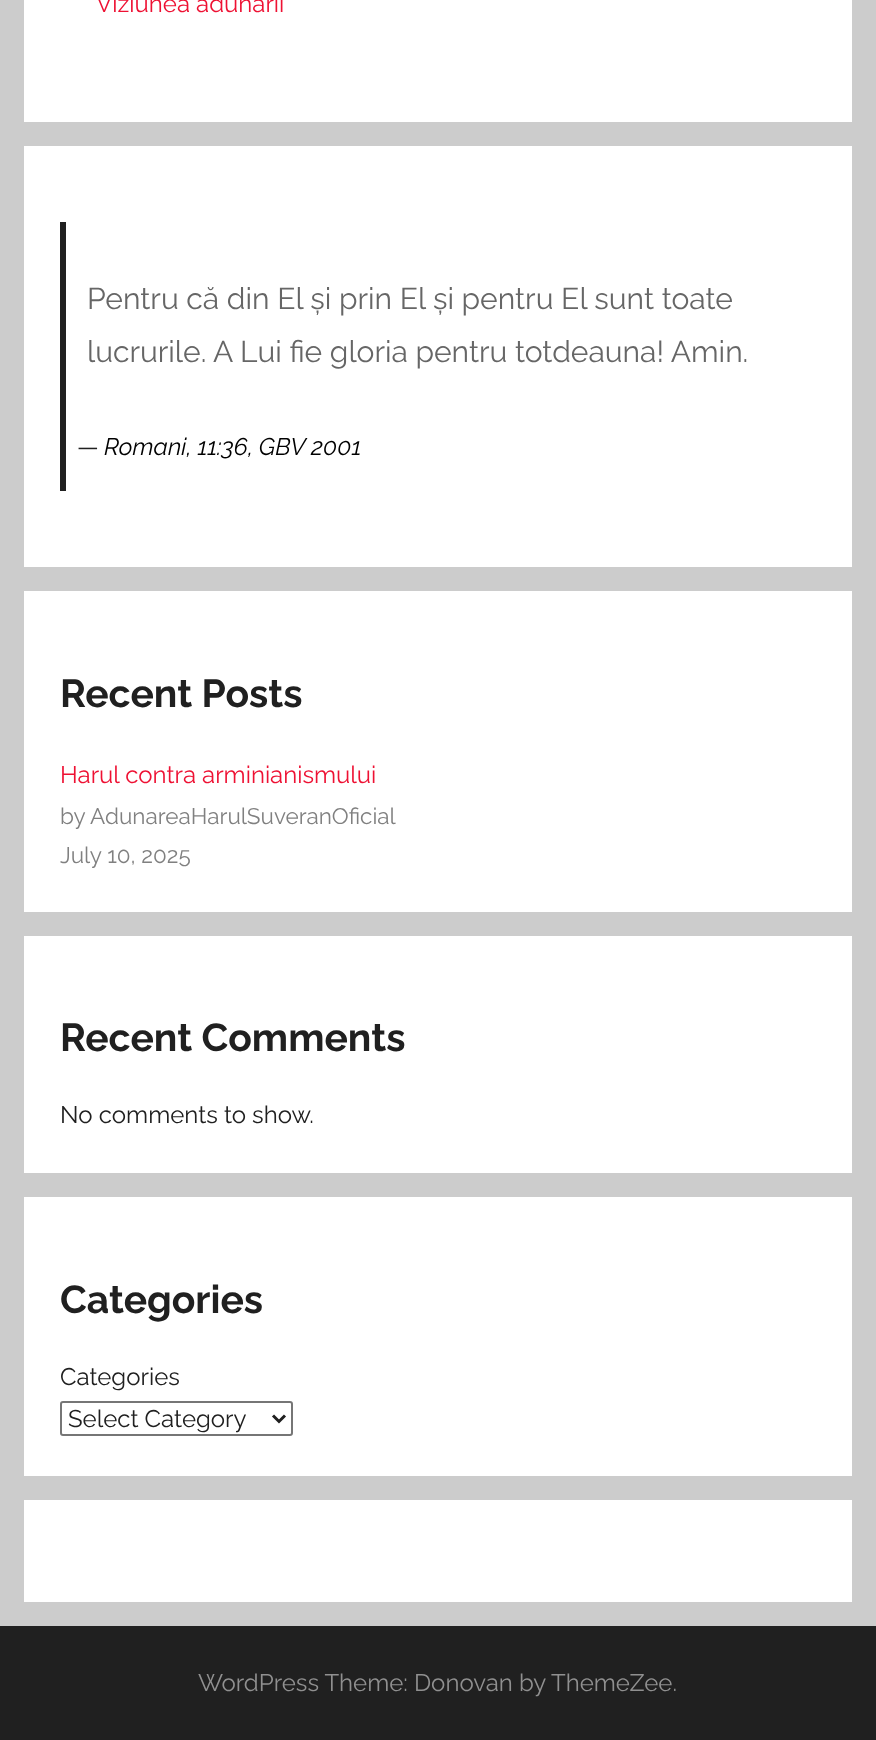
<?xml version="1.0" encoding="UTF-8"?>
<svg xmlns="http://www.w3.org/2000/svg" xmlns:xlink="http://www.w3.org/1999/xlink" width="876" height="1740">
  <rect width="100%" height="100%" fill="#cccccc" />
  <rect x="24" width="828" height="122" fill="#ffffff" />
  <rect x="24" y="146" width="828" height="421" fill="#ffffff" />
  <rect x="60" y="222" width="6" height="269" fill="#202020" />
  <rect x="24" y="591" width="828" height="321" fill="#ffffff" />
  <rect x="24" y="936" width="828" height="237" fill="#ffffff" />
  <rect x="24" y="1197" width="828" height="279" fill="#ffffff" />
  <rect x="61" y="1402" width="231" height="33" rx="2" fill="none" stroke="#767676" stroke-width="2" />
  <path d="M 273 1415.5 l 6 6 l 6 -6" fill="none" stroke="#202020" stroke-width="3" />
  <rect x="24" y="1500" width="828" height="102" fill="#ffffff" />
  <rect y="1626" width="876" height="114" fill="#202020" />
  <text x="96" y="12" style="font-family: Raleway; font-size: 24px; fill: #ee1133">Viziunea adunării</text>
  <text x="87" y="309" style="font-family: Raleway; font-size: 30px; fill: #666666">Pentru că din El și prin El și pentru El sunt toate</text>
  <text x="87" y="362" style="font-family: Raleway; font-size: 30px; fill: #666666">lucrurile. A Lui fie gloria pentru totdeauna! Amin.</text>
  <text x="77" y="455" style="font-family: Raleway; font-size: 24px; fill: #202020">—</text>
  <text x="104" y="455" style="font-family: Raleway; font-size: 24px; font-style: italic; fill: #000000">Romani, 11:36, GBV 2001</text>
  <text x="60" y="707" style="font-family: Raleway; font-size: 39px; font-weight: bold; fill: #202020">Recent Posts</text>
  <text x="60" y="783" style="font-family: Raleway; font-size: 24px; fill: #ee1133">Harul contra arminianismului</text>
  <text x="60" y="824" style="font-family: Raleway; font-size: 22.5px; fill: #808080">by AdunareaHarulSuveranOficial</text>
  <text x="60" y="863" style="font-family: Raleway; font-size: 22.5px; fill: #808080">July 10, 2025</text>
  <text x="60" y="1051" style="font-family: Raleway; font-size: 39px; font-weight: bold; fill: #202020">Recent Comments</text>
  <text x="60" y="1123" style="font-family: Raleway; font-size: 24px; fill: #202020">No comments to show.</text>
  <text x="60" y="1313" style="font-family: Raleway; font-size: 39px; font-weight: bold; fill: #202020">Categories</text>
  <text x="60" y="1385" style="font-family: Raleway; font-size: 24px; fill: #202020">Categories</text>
  <text x="68" y="1427" style="font-family: Raleway; font-size: 24px; fill: #202020">Select Category</text>
  <text x="198" y="1691" style="font-family: Raleway; font-size: 24px; fill: #909090">WordPress Theme: Donovan by ThemeZee.</text>
</svg>
